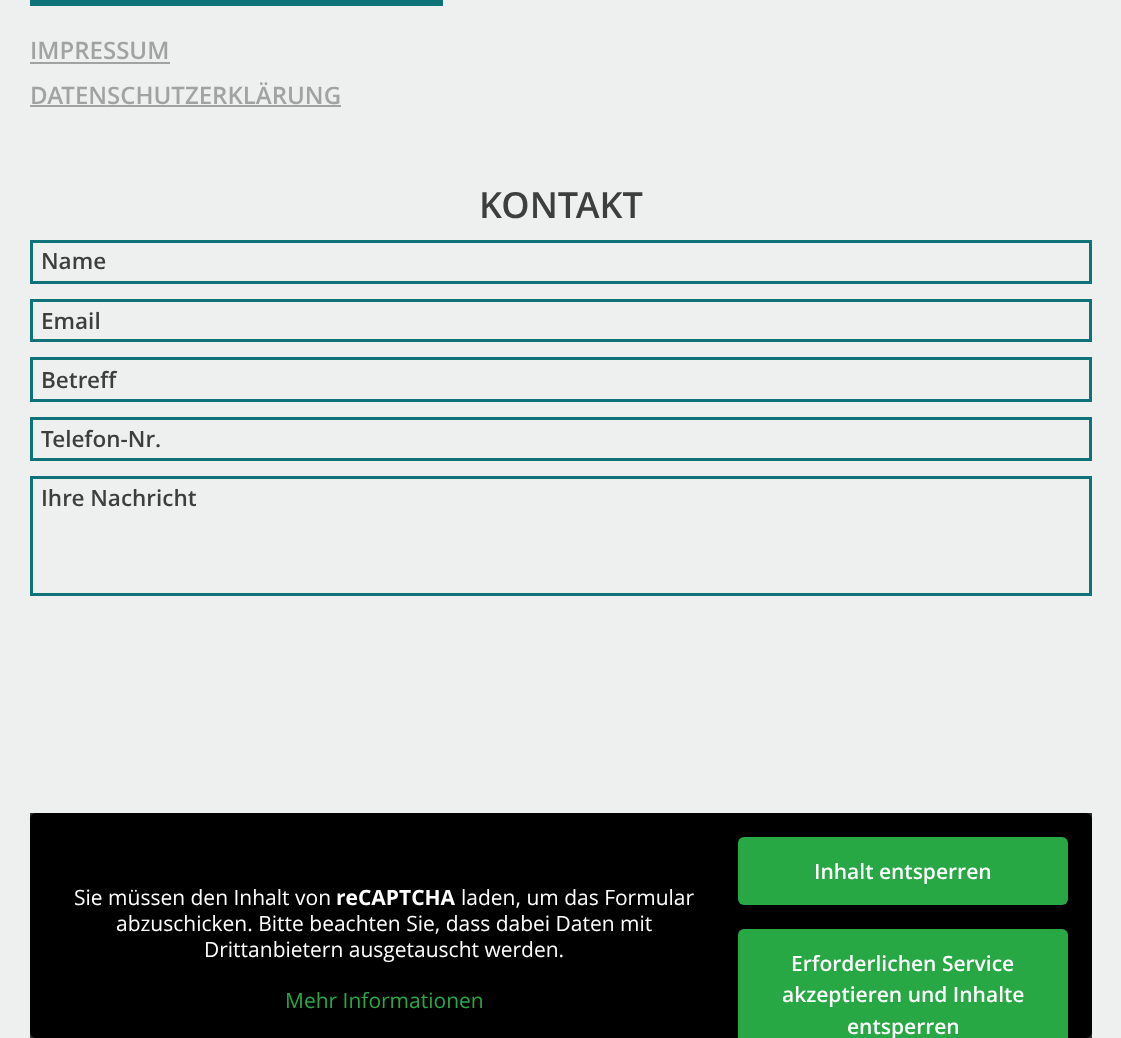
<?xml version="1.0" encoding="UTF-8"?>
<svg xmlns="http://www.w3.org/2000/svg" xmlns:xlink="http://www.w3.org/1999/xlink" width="1121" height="1038">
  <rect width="100%" height="100%" fill="#eef0f0" />
  <rect x="30" y="813" width="1062" height="225" fill="#303030" />
  <rect x="30" width="413" height="6" fill="#0e7279" />
  <rect x="30" y="62" width="140" height="2" fill="#a1a2a2" />
  <rect x="30" y="105" width="311" height="2" fill="#a1a2a2" />
  <rect x="31.5" y="241.5" width="1059" height="41" fill="none" stroke="#0e7279" stroke-width="3" />
  <rect x="31.5" y="300.5" width="1059" height="40" fill="none" stroke="#0e7279" stroke-width="3" />
  <rect x="31.5" y="358.5" width="1059" height="42" fill="none" stroke="#0e7279" stroke-width="3" />
  <rect x="31.5" y="418.5" width="1059" height="41" fill="none" stroke="#0e7279" stroke-width="3" />
  <rect x="31.5" y="477.5" width="1059" height="117" fill="none" stroke="#0e7279" stroke-width="3" />
  <rect x="30" y="813" width="1062" height="225" rx="6" fill="#000000" />
  <rect x="738" y="837" width="330" height="68" rx="6" fill="#28a745" />
  <rect x="738" y="929" width="330" height="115" rx="6" fill="#28a745" />
  <text x="30" y="59" style="font-family: Open Sans; font-size: 24px; font-weight: 600; fill: #a1a2a2">IMPRESSUM</text>
  <text x="30" y="104" style="font-family: Open Sans; font-size: 24px; font-weight: 600; fill: #a1a2a2">DATENSCHUTZERKLÄRUNG</text>
  <text x="479" y="218" style="font-family: Open Sans; font-size: 36px; font-weight: 600; fill: #3d3e3e">KONTAKT</text>
  <text x="41" y="269" style="font-family: Open Sans; font-size: 22.5px; font-weight: 600; fill: #3d3e3e">Name</text>
  <text x="41" y="329" style="font-family: Open Sans; font-size: 22.5px; font-weight: 600; fill: #3d3e3e">Email</text>
  <text x="41" y="388" style="font-family: Open Sans; font-size: 22.5px; font-weight: 600; fill: #3d3e3e">Betreff</text>
  <text x="41" y="447" style="font-family: Open Sans; font-size: 22.5px; font-weight: 600; fill: #3d3e3e">Telefon-Nr.</text>
  <text x="41" y="506" style="font-family: Open Sans; font-size: 22.5px; font-weight: 600; fill: #3d3e3e">Ihre Nachricht</text>
  <text x="74" y="905" style="font-family: Open Sans; font-size: 21px; fill: #ffffff">Sie müssen den Inhalt von</text>
  <text x="336" y="905" style="font-family: Open Sans; font-size: 21px; font-weight: bold; fill: #ffffff">reCAPTCHA</text>
  <text x="461" y="905" style="font-family: Open Sans; font-size: 21px; fill: #ffffff">laden, um das Formular</text>
  <text x="116" y="931" style="font-family: Open Sans; font-size: 21px; fill: #ffffff">abzuschicken. Bitte beachten Sie, dass dabei Daten mit</text>
  <text x="204" y="957" style="font-family: Open Sans; font-size: 21px; fill: #ffffff">Drittanbietern ausgetauscht werden.</text>
  <text x="285" y="1008" style="font-family: Open Sans; font-size: 21px; fill: #28a745">Mehr Informationen</text>
  <text x="814" y="879" style="font-family: 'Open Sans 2'; font-size: 21px; font-weight: 600; fill: #ffffff">Inhalt entsperren</text>
  <text x="791" y="971" style="font-family: 'Open Sans 2'; font-size: 21px; font-weight: 600; fill: #ffffff">Erforderlichen Service</text>
  <text x="782" y="1002" style="font-family: 'Open Sans 2'; font-size: 21px; font-weight: 600; fill: #ffffff">akzeptieren und Inhalte</text>
  <text x="847" y="1034" style="font-family: 'Open Sans 2'; font-size: 21px; font-weight: 600; fill: #ffffff">entsperren</text>
</svg>
